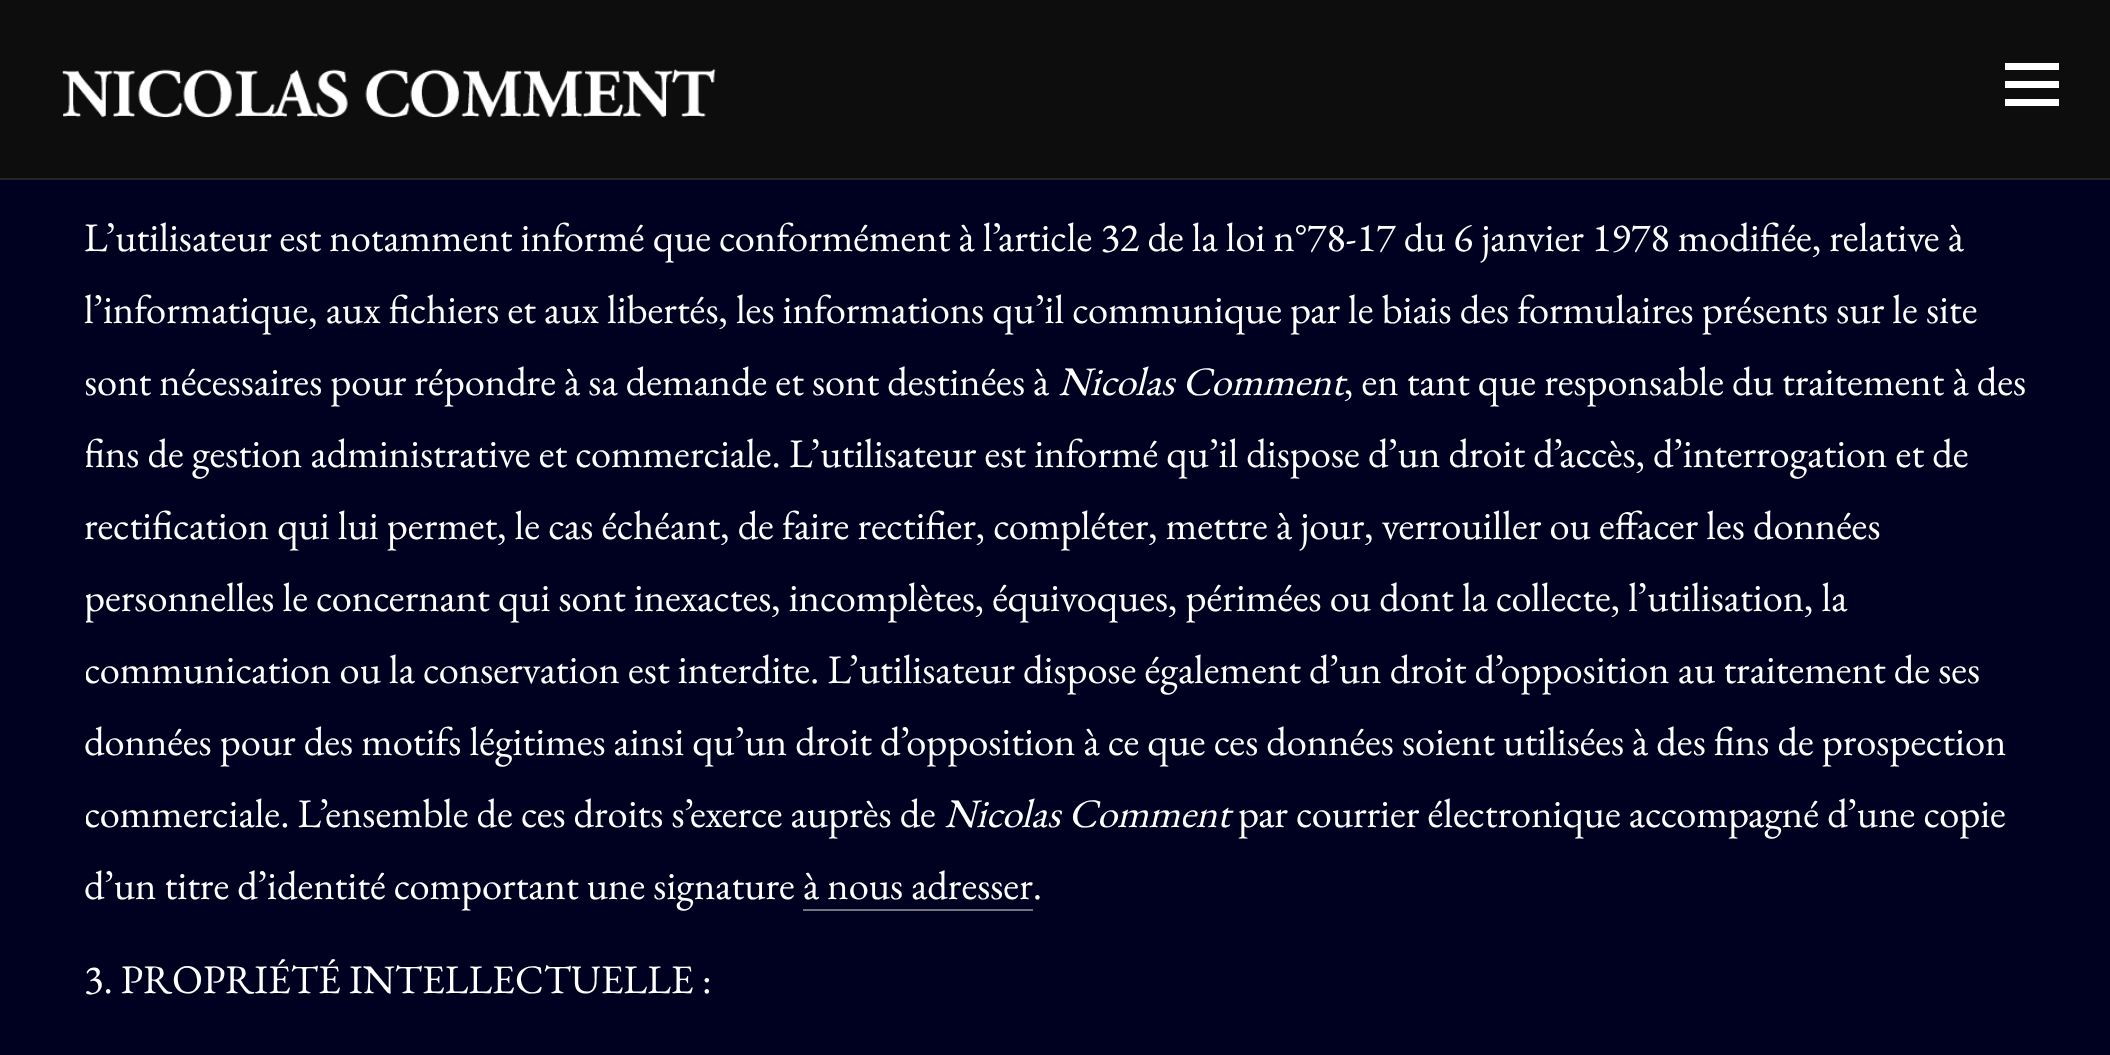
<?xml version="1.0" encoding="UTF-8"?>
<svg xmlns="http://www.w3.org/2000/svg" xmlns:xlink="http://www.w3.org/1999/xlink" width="2110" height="1055">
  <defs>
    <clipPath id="clip1"><rect x="86" width="1939" height="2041" /></clipPath>
  </defs>
  <rect width="100%" height="100%" fill="#000021" />
  <rect width="2110" height="178" fill="#0d0d0d" />
  <rect y="178" width="2110" height="2" fill="#252525" />
  <image x="61" y="68" width="655" height="50" xlink:href="image1.png" />
  <rect x="2005" y="63" width="54" height="7" fill="#ffffff" />
  <rect x="2005" y="81" width="54" height="7" fill="#ffffff" />
  <rect x="2005" y="99" width="54" height="7" fill="#ffffff" />
  <text x="84" y="251" style="font-family: EB Garamond; font-size: 40.5px; fill: #ffffff">L’utilisateur est notamment informé que conformément à l’article 32 de la loi n°78-17 du 6 janvier 1978 modifiée, relative à</text>
  <text x="84" y="323" style="font-family: EB Garamond; font-size: 40.5px; fill: #ffffff">l’informatique, aux fichiers et aux libertés, les informations qu’il communique par le biais des formulaires présents sur le site</text>
  <g clip-path="url(#clip1)">
    <text x="84" y="395" style="font-family: EB Garamond; font-size: 40.5px; fill: #ffffff">sont nécessaires pour répondre à sa demande et sont destinées à</text>
  </g>
  <text x="1058" y="395" style="font-family: EB Garamond; font-size: 40.5px; font-style: italic; fill: #ffffff">Nicolas Comment</text>
  <text x="1344" y="395" style="font-family: EB Garamond; font-size: 40.5px; fill: #ffffff">, en tant que responsable du traitement à des</text>
  <g clip-path="url(#clip1)">
    <text x="84" y="467" style="font-family: EB Garamond; font-size: 40.5px; fill: #ffffff">fins de gestion administrative et commerciale. L’utilisateur est informé qu’il dispose d’un droit d’accès, d’interrogation et de</text>
  </g>
  <text x="84" y="539" style="font-family: EB Garamond; font-size: 40.5px; fill: #ffffff">rectification qui lui permet, le cas échéant, de faire rectifier, compléter, mettre à jour, verrouiller ou effacer les données</text>
  <g clip-path="url(#clip1)">
    <text x="84" y="611" style="font-family: EB Garamond; font-size: 40.5px; fill: #ffffff">personnelles le concernant qui sont inexactes, incomplètes, équivoques, périmées ou dont la collecte, l’utilisation, la</text>
    <text x="84" y="683" style="font-family: EB Garamond; font-size: 40.5px; fill: #ffffff">communication ou la conservation est interdite. L’utilisateur dispose également d’un droit d’opposition au traitement de ses</text>
  </g>
  <text x="84" y="755" style="font-family: EB Garamond; font-size: 40.5px; fill: #ffffff">données pour des motifs légitimes ainsi qu’un droit d’opposition à ce que ces données soient utilisées à des fins de prospection</text>
  <g clip-path="url(#clip1)">
    <text x="84" y="827" style="font-family: EB Garamond; font-size: 40.5px; fill: #ffffff">commerciale. L’ensemble de ces droits s’exerce auprès de</text>
  </g>
  <text x="944" y="827" style="font-family: EB Garamond; font-size: 40.5px; font-style: italic; fill: #ffffff">Nicolas Comment</text>
  <text x="1238" y="827" style="font-family: EB Garamond; font-size: 40.5px; fill: #ffffff">par courrier électronique accompagné d’une copie</text>
  <text x="84" y="899" style="font-family: EB Garamond; font-size: 40.5px; fill: #ffffff">d’un titre d’identité comportant une signature à nous adresser.</text>
  <rect x="803" y="909" width="230" height="2" fill="#74747e" />
  <text x="84" y="993" style="font-family: EB Garamond; font-size: 40.5px; fill: #ffffff">3. PROPRIÉTÉ INTELLECTUELLE :</text>
</svg>
